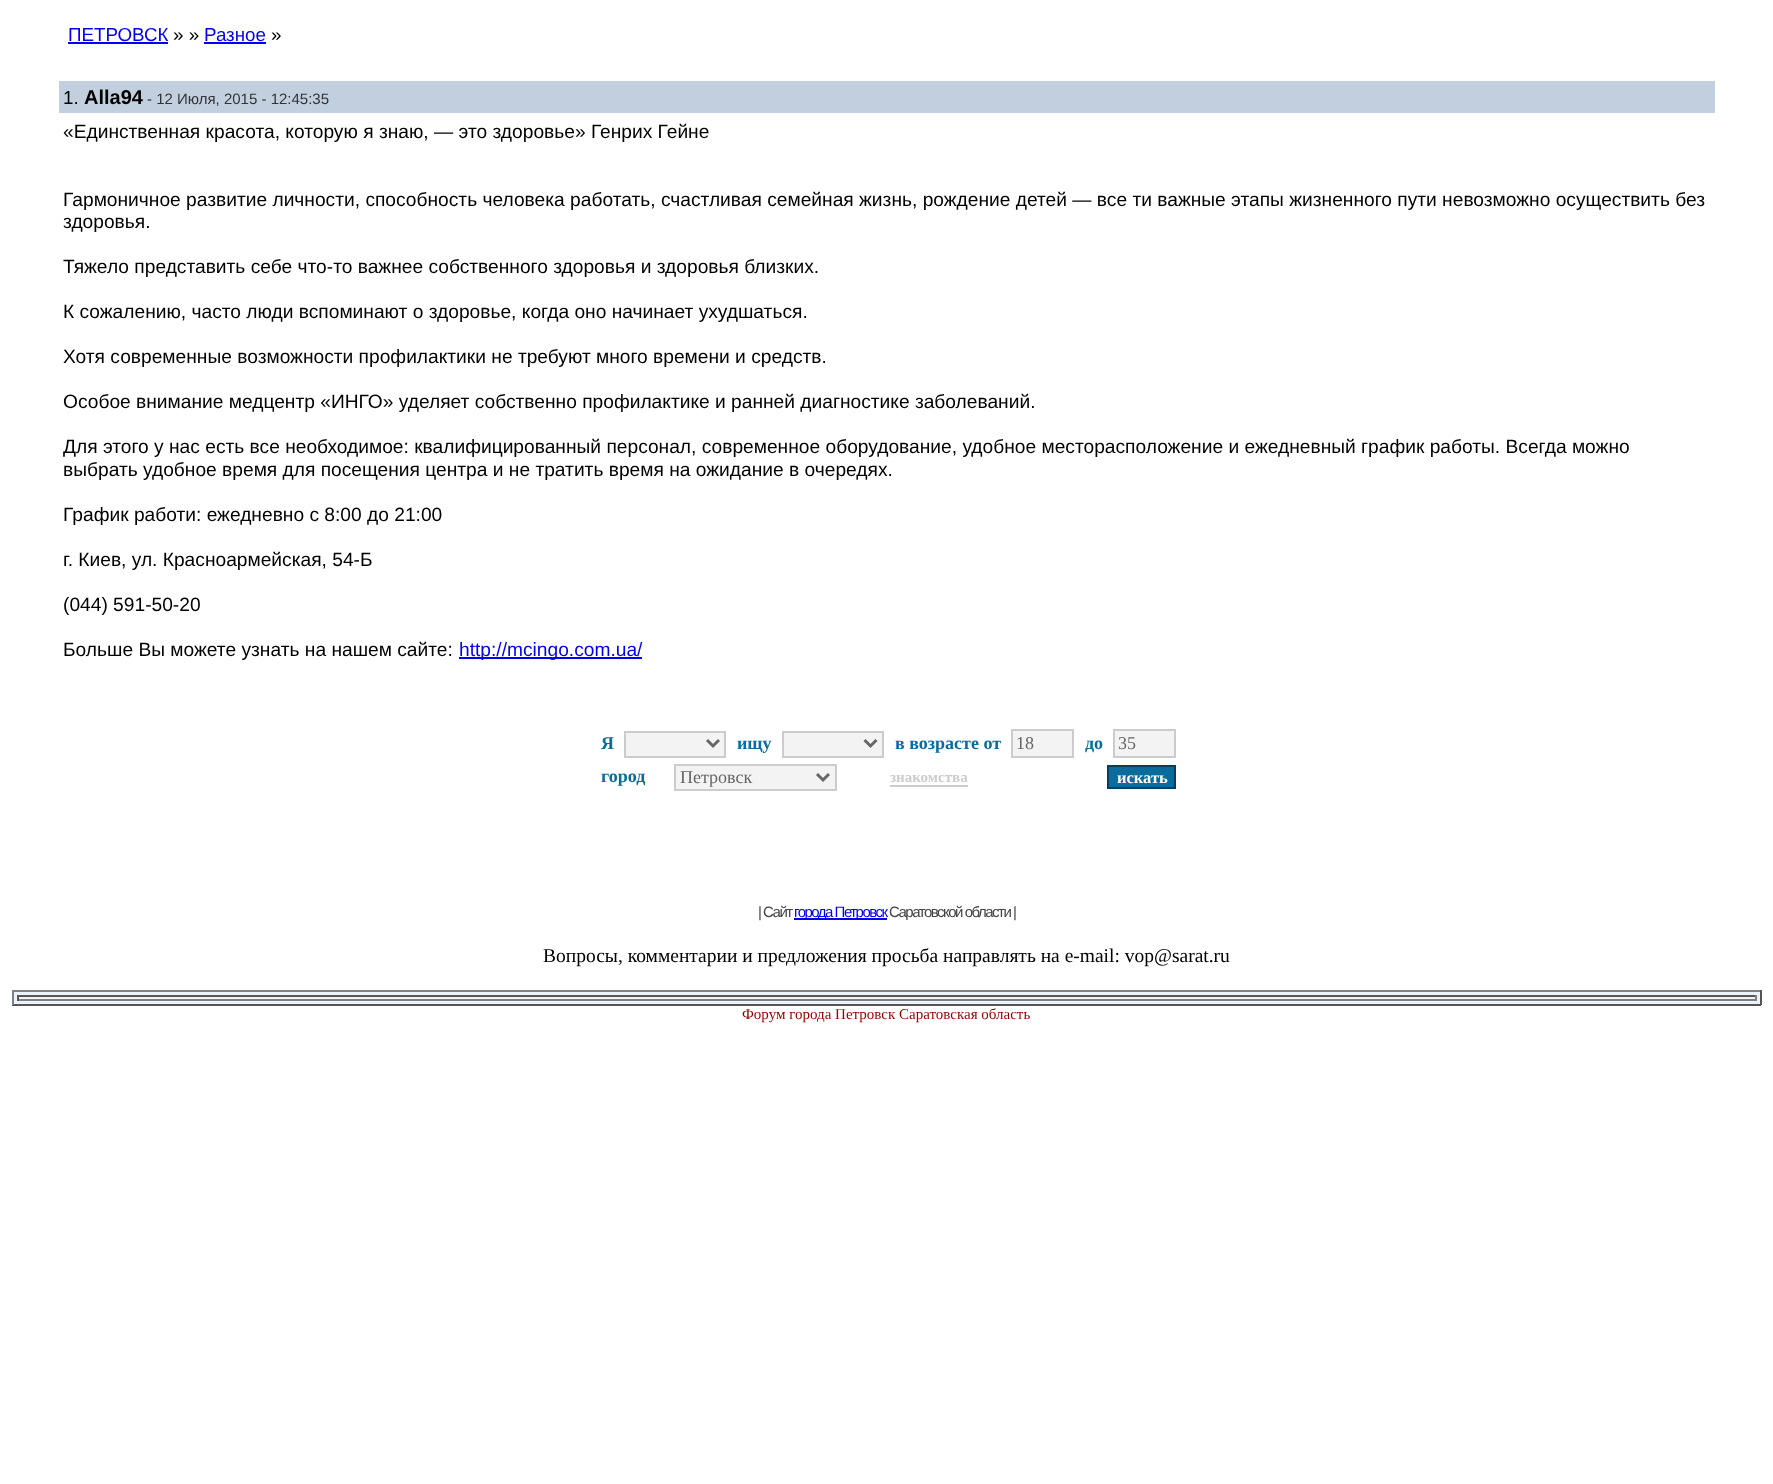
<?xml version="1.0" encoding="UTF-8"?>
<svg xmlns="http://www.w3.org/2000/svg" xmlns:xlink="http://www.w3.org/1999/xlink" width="1773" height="1484">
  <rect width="100%" height="100%" fill="#ffffff" />
  <rect x="68" y="42" width="100" height="2" fill="#0000ee" />
  <rect x="204" y="42" width="62" height="2" fill="#0000ee" />
  <rect x="59" y="81" width="1656" height="32" fill="#c2cfdf" />
  <rect x="459" y="657" width="183" height="2" fill="#0000ee" />
  <rect x="625" y="732" width="100" height="25" fill="#f3f3f4" stroke="#cccccc" stroke-width="2" />
  <path d="M 707 740 l 6 6 l 6 -6" fill="none" stroke="#666666" stroke-width="3" />
  <rect x="783" y="732" width="100" height="25" fill="#f3f3f4" stroke="#cccccc" stroke-width="2" />
  <path d="M 864.5 740 l 6 6 l 6 -6" fill="none" stroke="#666666" stroke-width="3" />
  <rect x="1012" y="730" width="61" height="27" fill="#f3f3f4" stroke="#cccccc" stroke-width="2" />
  <rect x="1114" y="730" width="61" height="27" fill="#f3f3f4" stroke="#cccccc" stroke-width="2" />
  <rect x="675" y="765" width="161" height="25" fill="#f3f3f4" stroke="#cccccc" stroke-width="2" />
  <path d="M 817 774 l 6 6 l 6 -6" fill="none" stroke="#666666" stroke-width="3" />
  <rect x="890" y="785" width="78" height="2" fill="#cccccc" />
  <rect x="1108" y="766" width="67" height="22" fill="#0a6b9d" stroke="#063f5e" stroke-width="2" />
  <rect x="794" y="918" width="93" height="2" fill="#0000ee" />
  <rect x="14" y="992" width="1746" height="12" fill="#ecf2fc" />
  <rect x="12" y="990" width="1749" height="2" fill="#808080" />
  <rect x="1760" y="990" width="2" height="15" fill="#555555" />
  <rect x="12" y="1004" width="1749" height="2" fill="#555555" />
  <rect x="12" y="990" width="2" height="15" fill="#808080" />
  <rect x="17" y="995" width="1740" height="2" fill="#555555" />
  <rect x="1755" y="995" width="2" height="6" fill="#808080" />
  <rect x="17" y="999" width="1740" height="2" fill="#808080" />
  <rect x="17" y="995" width="2" height="6" fill="#555555" />
  <text x="68" y="41" style="font-family: Liberation Sans; font-size: 18.75px; fill: #0000ee">ПЕТРОВСК</text>
  <text x="173" y="41" style="font-family: Liberation Sans; font-size: 18.75px; fill: #000000">» »</text>
  <text x="204" y="41" style="font-family: Liberation Sans; font-size: 18.75px; fill: #0000ee">Разное</text>
  <text x="271" y="41" style="font-family: Liberation Sans; font-size: 18.75px; fill: #000000">»</text>
  <text x="63" y="104" style="font-family: Liberation Sans; font-size: 18.75px; fill: #000000">1.</text>
  <text x="84" y="104" style="font-family: Liberation Sans; font-size: 20px; font-weight: bold; fill: #000000">Alla94</text>
  <text x="147" y="104" style="font-family: Liberation Sans; font-size: 15px; fill: #333333">- 12 Июля, 2015 - 12:45:35</text>
  <text x="63" y="138" style="font-family: Liberation Sans; font-size: 19.2px; fill: #000000">«Единственная красота, которую я знаю, — это здоровье» Генрих Гейне</text>
  <text x="63" y="206" style="font-family: Liberation Sans; font-size: 19.2px; fill: #000000">Гармоничное развитие личности, способность человека работать, счастливая семейная жизнь, рождение детей — все ти важные этапы жизненного пути невозможно осуществить без</text>
  <text x="63" y="228" style="font-family: Liberation Sans; font-size: 19.2px; fill: #000000">здоровья.</text>
  <text x="63" y="273" style="font-family: Liberation Sans; font-size: 19.2px; fill: #000000">Тяжело представить себе что-то важнее собственного здоровья и здоровья близких.</text>
  <text x="63" y="318" style="font-family: Liberation Sans; font-size: 19.2px; fill: #000000">К сожалению, часто люди вспоминают о здоровье, когда оно начинает ухудшаться.</text>
  <text x="63" y="363" style="font-family: Liberation Sans; font-size: 19.2px; fill: #000000">Хотя современные возможности профилактики не требуют много времени и средств.</text>
  <text x="63" y="408" style="font-family: Liberation Sans; font-size: 19.2px; fill: #000000">Особое внимание медцентр «ИНГО» уделяет собственно профилактике и ранней диагностике заболеваний.</text>
  <text x="63" y="453" style="font-family: Liberation Sans; font-size: 19.2px; fill: #000000">Для этого у нас есть все необходимое: квалифицированный персонал, современное оборудование, удобное месторасположение и ежедневный график работы. Всегда можно</text>
  <text x="63" y="476" style="font-family: Liberation Sans; font-size: 19.2px; fill: #000000">выбрать удобное время для посещения центра и не тратить время на ожидание в очередях.</text>
  <text x="63" y="521" style="font-family: Liberation Sans; font-size: 19.2px; fill: #000000">График работи: ежедневно с 8:00 до 21:00</text>
  <text x="63" y="566" style="font-family: Liberation Sans; font-size: 19.2px; fill: #000000">г. Киев, ул. Красноармейская, 54-Б</text>
  <text x="63" y="611" style="font-family: Liberation Sans; font-size: 19.2px; fill: #000000">(044) 591-50-20</text>
  <text x="63" y="656" style="font-family: Liberation Sans; font-size: 19.2px; fill: #000000">Больше Вы можете узнать на нашем сайте:</text>
  <text x="459" y="656" style="font-family: Liberation Sans; font-size: 19.2px; fill: #0000ee">http://mcingo.com.ua/</text>
  <text x="601" y="749" style="font-family: Liberation Serif; font-size: 18px; font-weight: bold; fill: #0a6b9d">Я</text>
  <text x="737" y="749" style="font-family: Liberation Serif; font-size: 18px; font-weight: bold; fill: #0a6b9d">ищу</text>
  <text x="895" y="749" style="font-family: Liberation Serif; font-size: 18px; font-weight: bold; fill: #0a6b9d">в возрасте от</text>
  <text x="1016" y="749" style="font-family: Liberation Serif; font-size: 18px; fill: #666666">18</text>
  <text x="1085" y="749" style="font-family: Liberation Serif; font-size: 18px; font-weight: bold; fill: #0a6b9d">до</text>
  <text x="1118" y="749" style="font-family: Liberation Serif; font-size: 18px; fill: #666666">35</text>
  <text x="601" y="782" style="font-family: Liberation Serif; font-size: 18px; font-weight: bold; fill: #0a6b9d">город</text>
  <text x="680" y="783" style="font-family: Liberation Serif; font-size: 18px; fill: #666666">Петровск</text>
  <text x="890" y="782" style="font-family: Liberation Serif; font-size: 15px; font-weight: bold; fill: #cccccc">знакомства</text>
  <text x="1117" y="783" style="font-family: Liberation Serif; font-size: 16.5px; font-weight: bold; fill: #ffffff">искать</text>
  <text x="758" y="917" style="font-family: Liberation Sans; font-size: 15px; letter-spacing: -1.5px; fill: #444444">| Сайт</text>
  <text x="794" y="917" style="font-family: Liberation Sans; font-size: 15px; letter-spacing: -1.5px; fill: #0000ee">города Петровск</text>
  <text x="889" y="917" style="font-family: Liberation Sans; font-size: 15px; letter-spacing: -1.5px; fill: #444444">Саратовской области |</text>
  <text x="543" y="962" style="font-family: Liberation Serif; font-size: 19.5px; fill: #000000">Вопросы, комментарии и предложения просьба направлять на e-mail: vop@sarat.ru</text>
  <text x="742" y="1019" style="font-family: Liberation Serif; font-size: 15px; fill: #990000">Форум города Петровск Саратовская область</text>
</svg>
